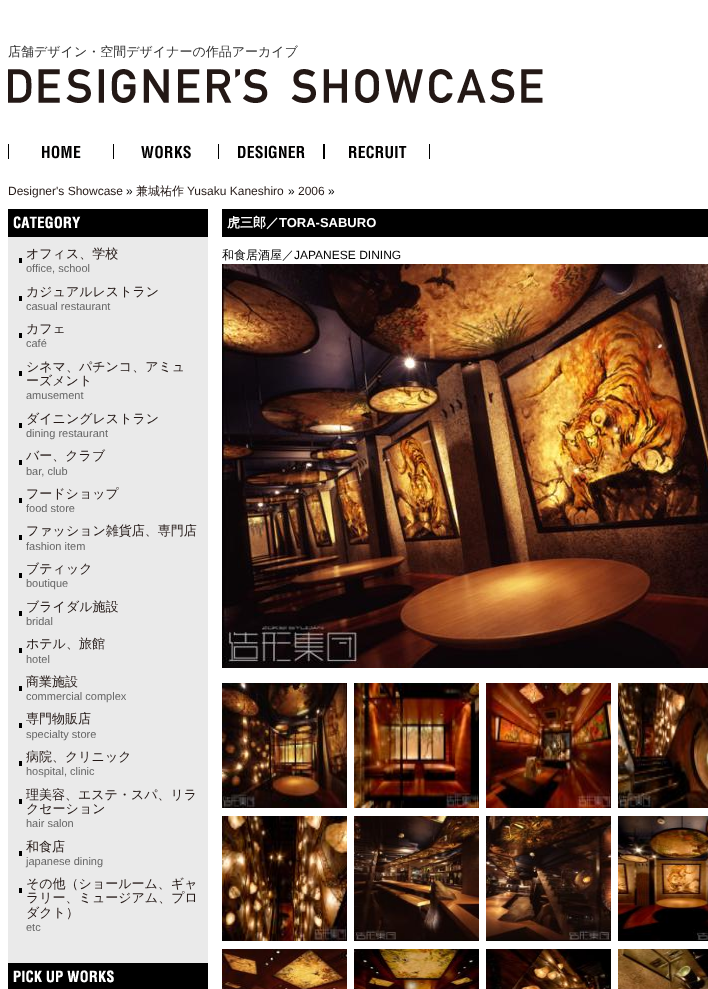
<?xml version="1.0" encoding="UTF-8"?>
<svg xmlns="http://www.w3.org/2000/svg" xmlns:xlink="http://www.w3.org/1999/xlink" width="708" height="989">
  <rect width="100%" height="100%" fill="#ffffff" />
  <image x="8" y="69" width="535" height="34" xlink:href="image1.png" />
  <image x="8" y="144" width="73" height="15" xlink:href="image2.png" />
  <image x="113" y="144" width="78" height="15" xlink:href="image3.png" />
  <image x="218" y="144" width="106" height="15" xlink:href="image4.png" />
  <image x="324" y="144" width="106" height="15" xlink:href="image5.png" />
  <rect x="8" y="237" width="200" height="726" fill="#eaeaea" />
  <rect x="222" y="209" width="486" height="28" fill="#000000" />
  <image x="222" y="264" width="486" height="404" xlink:href="image6.png" />
  <image x="222" y="683" width="125" height="125" xlink:href="image7.png" />
  <image x="354" y="683" width="125" height="125" xlink:href="image8.png" />
  <image x="486" y="683" width="125" height="125" xlink:href="image9.png" />
  <image x="618" y="683" width="90" height="125" xlink:href="image10.png" />
  <image x="222" y="816" width="125" height="125" xlink:href="image11.png" />
  <image x="354" y="816" width="125" height="125" xlink:href="image12.png" />
  <image x="486" y="816" width="125" height="125" xlink:href="image13.png" />
  <image x="618" y="816" width="90" height="125" xlink:href="image14.png" />
  <image x="222" y="949" width="125" height="40" xlink:href="image15.png" />
  <image x="354" y="949" width="125" height="40" xlink:href="image16.png" />
  <image x="486" y="949" width="125" height="40" xlink:href="image17.png" />
  <image x="618" y="949" width="90" height="40" xlink:href="image18.png" />
  <image x="8" y="209" width="200" height="28" xlink:href="image19.png" />
  <rect x="19" y="258" width="3" height="5" fill="#000000" />
  <rect x="19" y="296" width="3" height="5" fill="#000000" />
  <rect x="19" y="333" width="3" height="5" fill="#000000" />
  <rect x="19" y="371" width="3" height="5" fill="#000000" />
  <rect x="19" y="423" width="3" height="5" fill="#000000" />
  <rect x="19" y="460" width="3" height="5" fill="#000000" />
  <rect x="19" y="498" width="3" height="5" fill="#000000" />
  <rect x="19" y="535" width="3" height="5" fill="#000000" />
  <rect x="19" y="573" width="3" height="5" fill="#000000" />
  <rect x="19" y="611" width="3" height="5" fill="#000000" />
  <rect x="19" y="648" width="3" height="5" fill="#000000" />
  <rect x="19" y="686" width="3" height="5" fill="#000000" />
  <rect x="19" y="723" width="3" height="5" fill="#000000" />
  <rect x="19" y="761" width="3" height="5" fill="#000000" />
  <rect x="19" y="799" width="3" height="5" fill="#000000" />
  <rect x="19" y="851" width="3" height="5" fill="#000000" />
  <rect x="19" y="888" width="3" height="5" fill="#000000" />
  <image x="8" y="963" width="200" height="26" xlink:href="image20.png" />
  <text x="8" y="56" style="font-family: WenQuanYi Zen Hei; font-size: 13px; font-weight: 500; fill: #333333">店舗デザイン・空間デザイナーの作品アーカイブ</text>
  <text x="8" y="195" style="font-family: Liberation Sans; font-size: 12px; fill: #231815">Designer's Showcase</text>
  <text x="126" y="195" style="font-family: Liberation Sans; font-size: 12px; fill: #000000">»</text>
  <text x="136" y="195" style="font-family: WenQuanYi Zen Hei; font-size: 12px; font-weight: 500; fill: #231815">兼城祐作</text>
  <text x="187" y="195" style="font-family: Liberation Sans; font-size: 12px; fill: #231815">Yusaku Kaneshiro</text>
  <text x="288" y="195" style="font-family: Liberation Sans; font-size: 12px; fill: #000000">»</text>
  <text x="298" y="195" style="font-family: Liberation Sans; font-size: 12px; fill: #231815">2006</text>
  <text x="328" y="195" style="font-family: Liberation Sans; font-size: 12px; fill: #000000">»</text>
  <text x="227" y="227" style="font-family: WenQuanYi Zen Hei; font-size: 13px; font-weight: bold; fill: #ffffff">虎三郎／</text>
  <text x="279" y="227" style="font-family: Liberation Sans; font-size: 13px; font-weight: bold; fill: #ffffff">TORA-SABURO</text>
  <text x="222" y="259" style="font-family: WenQuanYi Zen Hei; font-size: 12px; font-weight: 500; fill: #000000">和食居酒屋／</text>
  <text x="294" y="259" style="font-family: Liberation Sans; font-size: 12px; fill: #000000">JAPANESE DINING</text>
  <text x="26" y="258" style="font-family: WenQuanYi Zen Hei; font-size: 13px; font-weight: 500; fill: #231815">オフィス、学校</text>
  <text x="26" y="272" style="font-family: Liberation Sans; font-size: 11px; fill: #666666">office, school</text>
  <text x="26" y="296" style="font-family: WenQuanYi Zen Hei; font-size: 13px; font-weight: 500; fill: #231815">カジュアルレストラン</text>
  <text x="26" y="310" style="font-family: Liberation Sans; font-size: 11px; fill: #666666">casual restaurant</text>
  <text x="26" y="333" style="font-family: WenQuanYi Zen Hei; font-size: 13px; font-weight: 500; fill: #231815">カフェ</text>
  <text x="26" y="347" style="font-family: Liberation Sans; font-size: 11px; fill: #666666">café</text>
  <text x="26" y="371" style="font-family: WenQuanYi Zen Hei; font-size: 13px; font-weight: 500; fill: #231815">シネマ、パチンコ、アミュ</text>
  <text x="26" y="385" style="font-family: WenQuanYi Zen Hei; font-size: 13px; font-weight: 500; fill: #231815">ーズメント</text>
  <text x="26" y="399" style="font-family: Liberation Sans; font-size: 11px; fill: #666666">amusement</text>
  <text x="26" y="423" style="font-family: WenQuanYi Zen Hei; font-size: 13px; font-weight: 500; fill: #231815">ダイニングレストラン</text>
  <text x="26" y="437" style="font-family: Liberation Sans; font-size: 11px; fill: #666666">dining restaurant</text>
  <text x="26" y="460" style="font-family: WenQuanYi Zen Hei; font-size: 13px; font-weight: 500; fill: #231815">バー、クラブ</text>
  <text x="26" y="475" style="font-family: Liberation Sans; font-size: 11px; fill: #666666">bar, club</text>
  <text x="26" y="498" style="font-family: WenQuanYi Zen Hei; font-size: 13px; font-weight: 500; fill: #231815">フードショップ</text>
  <text x="26" y="512" style="font-family: Liberation Sans; font-size: 11px; fill: #666666">food store</text>
  <text x="26" y="535" style="font-family: WenQuanYi Zen Hei; font-size: 13px; font-weight: 500; fill: #231815">ファッション雑貨店、専門店</text>
  <text x="26" y="550" style="font-family: Liberation Sans; font-size: 11px; fill: #666666">fashion item</text>
  <text x="26" y="573" style="font-family: WenQuanYi Zen Hei; font-size: 13px; font-weight: 500; fill: #231815">ブティック</text>
  <text x="26" y="587" style="font-family: Liberation Sans; font-size: 11px; fill: #666666">boutique</text>
  <text x="26" y="611" style="font-family: WenQuanYi Zen Hei; font-size: 13px; font-weight: 500; fill: #231815">ブライダル施設</text>
  <text x="26" y="625" style="font-family: Liberation Sans; font-size: 11px; fill: #666666">bridal</text>
  <text x="26" y="648" style="font-family: WenQuanYi Zen Hei; font-size: 13px; font-weight: 500; fill: #231815">ホテル、旅館</text>
  <text x="26" y="663" style="font-family: Liberation Sans; font-size: 11px; fill: #666666">hotel</text>
  <text x="26" y="686" style="font-family: WenQuanYi Zen Hei; font-size: 13px; font-weight: 500; fill: #231815">商業施設</text>
  <text x="26" y="700" style="font-family: Liberation Sans; font-size: 11px; fill: #666666">commercial complex</text>
  <text x="26" y="723" style="font-family: WenQuanYi Zen Hei; font-size: 13px; font-weight: 500; fill: #231815">専門物販店</text>
  <text x="26" y="738" style="font-family: Liberation Sans; font-size: 11px; fill: #666666">specialty store</text>
  <text x="26" y="761" style="font-family: WenQuanYi Zen Hei; font-size: 13px; font-weight: 500; fill: #231815">病院、クリニック</text>
  <text x="26" y="775" style="font-family: Liberation Sans; font-size: 11px; fill: #666666">hospital, clinic</text>
  <text x="26" y="799" style="font-family: WenQuanYi Zen Hei; font-size: 13px; font-weight: 500; fill: #231815">理美容、エステ・スパ、リラ</text>
  <text x="26" y="813" style="font-family: WenQuanYi Zen Hei; font-size: 13px; font-weight: 500; fill: #231815">クセーション</text>
  <text x="26" y="827" style="font-family: Liberation Sans; font-size: 11px; fill: #666666">hair salon</text>
  <text x="26" y="851" style="font-family: WenQuanYi Zen Hei; font-size: 13px; font-weight: 500; fill: #231815">和食店</text>
  <text x="26" y="865" style="font-family: Liberation Sans; font-size: 11px; fill: #666666">japanese dining</text>
  <text x="26" y="888" style="font-family: WenQuanYi Zen Hei; font-size: 13px; font-weight: 500; fill: #231815">その他（ショールーム、ギャ</text>
  <text x="26" y="902" style="font-family: WenQuanYi Zen Hei; font-size: 13px; font-weight: 500; fill: #231815">ラリー、ミュージアム、プロ</text>
  <text x="26" y="917" style="font-family: WenQuanYi Zen Hei; font-size: 13px; font-weight: 500; fill: #231815">ダクト）</text>
  <text x="26" y="931" style="font-family: Liberation Sans; font-size: 11px; fill: #666666">etc</text>
</svg>
